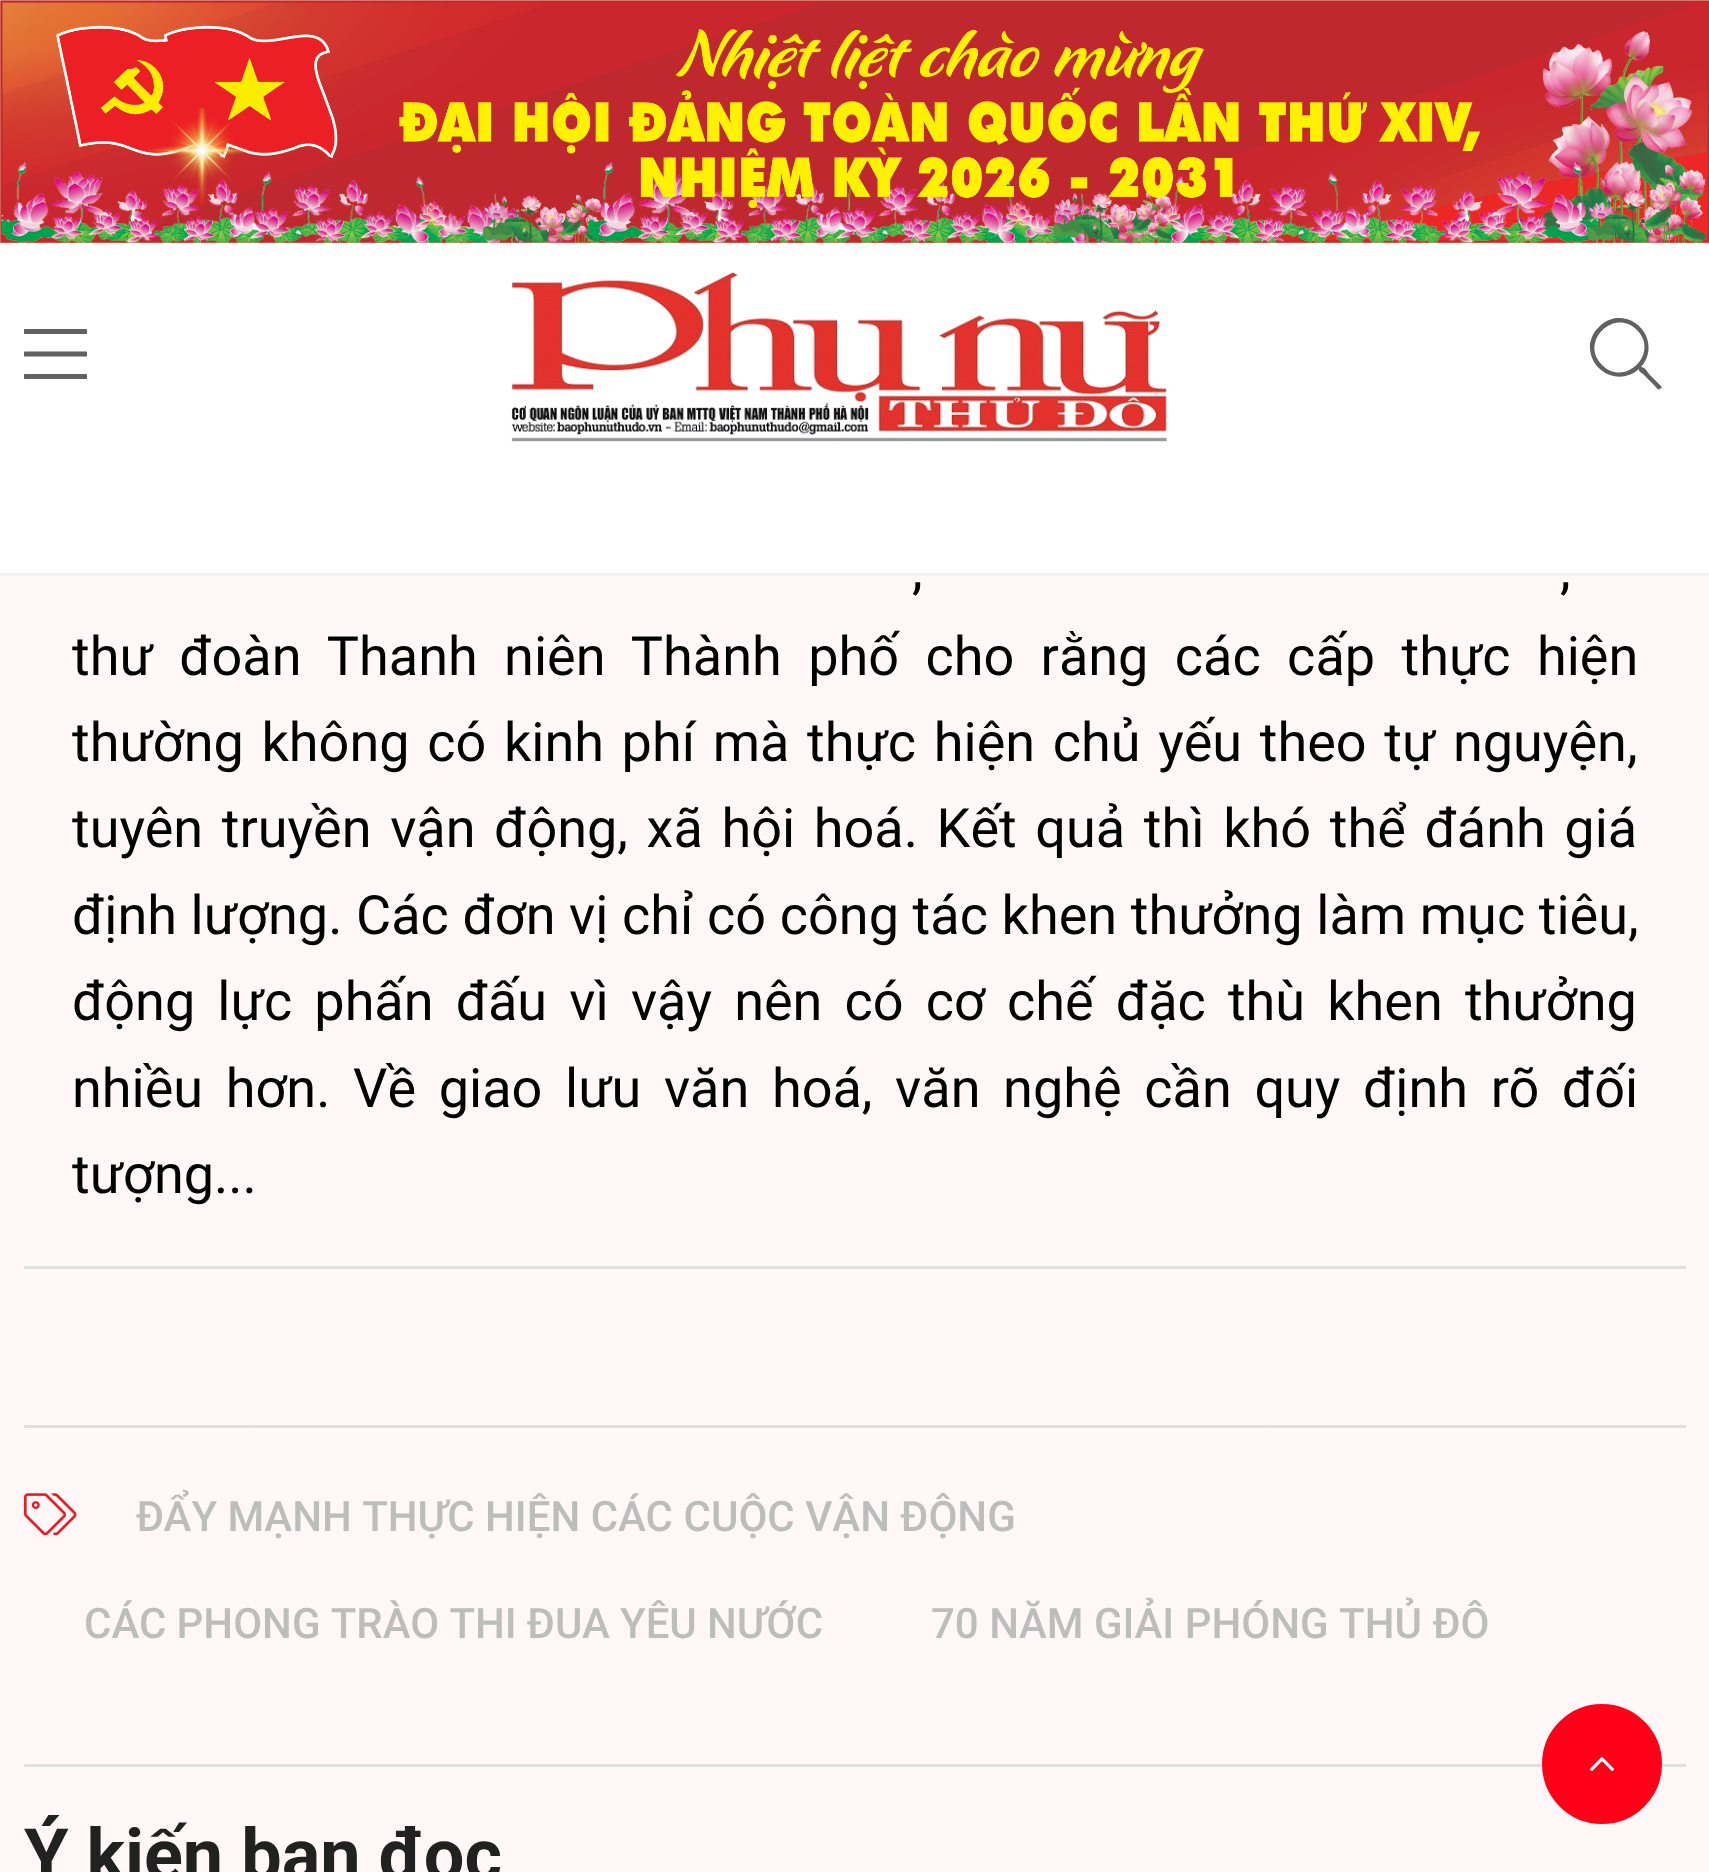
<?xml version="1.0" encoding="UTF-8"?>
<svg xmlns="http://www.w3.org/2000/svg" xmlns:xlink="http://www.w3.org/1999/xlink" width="1709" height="1872">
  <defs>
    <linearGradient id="g1" gradientUnits="userSpaceOnUse" x1="855" y1="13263" x2="855" y2="-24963"><stop offset="0" stop-color="#fff3f5" /><stop offset="1" stop-color="#ffffff" /></linearGradient>
  </defs>
  <rect width="100%" height="100%" fill="#ffffff" />
  <rect y="576" width="1709" height="1296" fill="url(#g1)" />
  <rect y="573" width="1709" height="3" fill="#f2f2f2" />
  <image x="0" y="0" width="1709" height="243" xlink:href="image1.png" />
  <image x="24" y="329" width="63" height="50" xlink:href="image2.png" />
  <image x="511" y="272" width="656" height="170" xlink:href="image3.png" />
  <path d="M 1661 386 l 1 1 l -2 2 c -2 2 -4 -2 -5 -3 l -12 -12 c -3 -2 -4 -2 -4 -5 c -20 18 -51 2 -49 -25 c 1 -6 4 -13 9 -17 c 4 -5 11 -8 17 -9 c 27 -2 43 29 25 49 c 4 0 6 4 8 7 z m -59 -21 c 23 23 58 -12 35 -35 c -23 -23 -58 12 -35 35 z" fill="#616161" />
  <rect x="24" y="1266" width="1662" height="3" fill="#e0e0e0" />
  <rect x="24" y="1425" width="1662" height="3" fill="#e0e0e0" />
  <image x="24" y="1493" width="53" height="43" xlink:href="image4.png" />
  <rect x="24" y="1764" width="1662" height="3" fill="#e0e0e0" />
  <circle cx="1602" cy="1764" r="58.5" fill="#ff0018" stroke="#ff0018" stroke-width="3" />
  <image x="1590" y="1757" width="24" height="15" xlink:href="image5.png" />
  <text x="912" y="588" word-spacing="6" style="font-family: Roboto; font-size: 54px; fill: #000000">,</text>
  <text x="1560" y="588" word-spacing="6" style="font-family: Roboto; font-size: 54px; fill: #000000">,</text>
  <text x="72" y="675" word-spacing="13" style="font-family: Roboto; font-size: 54px; fill: #000000">thư đoàn Thanh niên Thành phố cho rằng các cấp thực hiện</text>
  <text x="72" y="761" word-spacing="4.25" style="font-family: Roboto; font-size: 54px; fill: #000000">thường không có kinh phí mà thực hiện chủ yếu theo tự nguyện,</text>
  <text x="72" y="847" word-spacing="5.25" style="font-family: Roboto; font-size: 54px; fill: #000000">tuyên truyền vận động, xã hội hoá. Kết quả thì khó thể đánh giá</text>
  <text x="72" y="934" word-spacing="0.25" style="font-family: Roboto; font-size: 54px; fill: #000000">định lượng. Các đơn vị chỉ có công tác khen thưởng làm mục tiêu,</text>
  <text x="72" y="1020" word-spacing="8.75" style="font-family: Roboto; font-size: 54px; fill: #000000">động lực phấn đấu vì vậy nên có cơ chế đặc thù khen thưởng</text>
  <text x="72" y="1107" word-spacing="9.25" style="font-family: Roboto; font-size: 54px; fill: #000000">nhiều hơn. Về giao lưu văn hoá, văn nghệ cần quy định rõ đối</text>
  <text x="72" y="1193" style="font-family: Roboto; font-size: 54px; fill: #000000">tượng...</text>
  <text x="136" y="1531" style="font-family: Roboto; font-size: 42px; font-weight: 500; fill: #bdbdbd">ĐẨY MẠNH THỰC HIỆN CÁC CUỘC VẬN ĐỘNG</text>
  <text x="84" y="1638" word-spacing="-0.25" style="font-family: Roboto; font-size: 42px; font-weight: 500; fill: #bdbdbd">CÁC PHONG TRÀO THI ĐUA YÊU NƯỚC</text>
  <text x="931" y="1638" style="font-family: Roboto; font-size: 42px; font-weight: 500; fill: #bdbdbd">70 NĂM GIẢI PHÓNG THỦ ĐÔ</text>
  <text x="24" y="1880" style="font-family: Roboto; font-size: 72px; font-weight: bold; fill: #212121">Ý kiến bạn đọc</text>
</svg>
